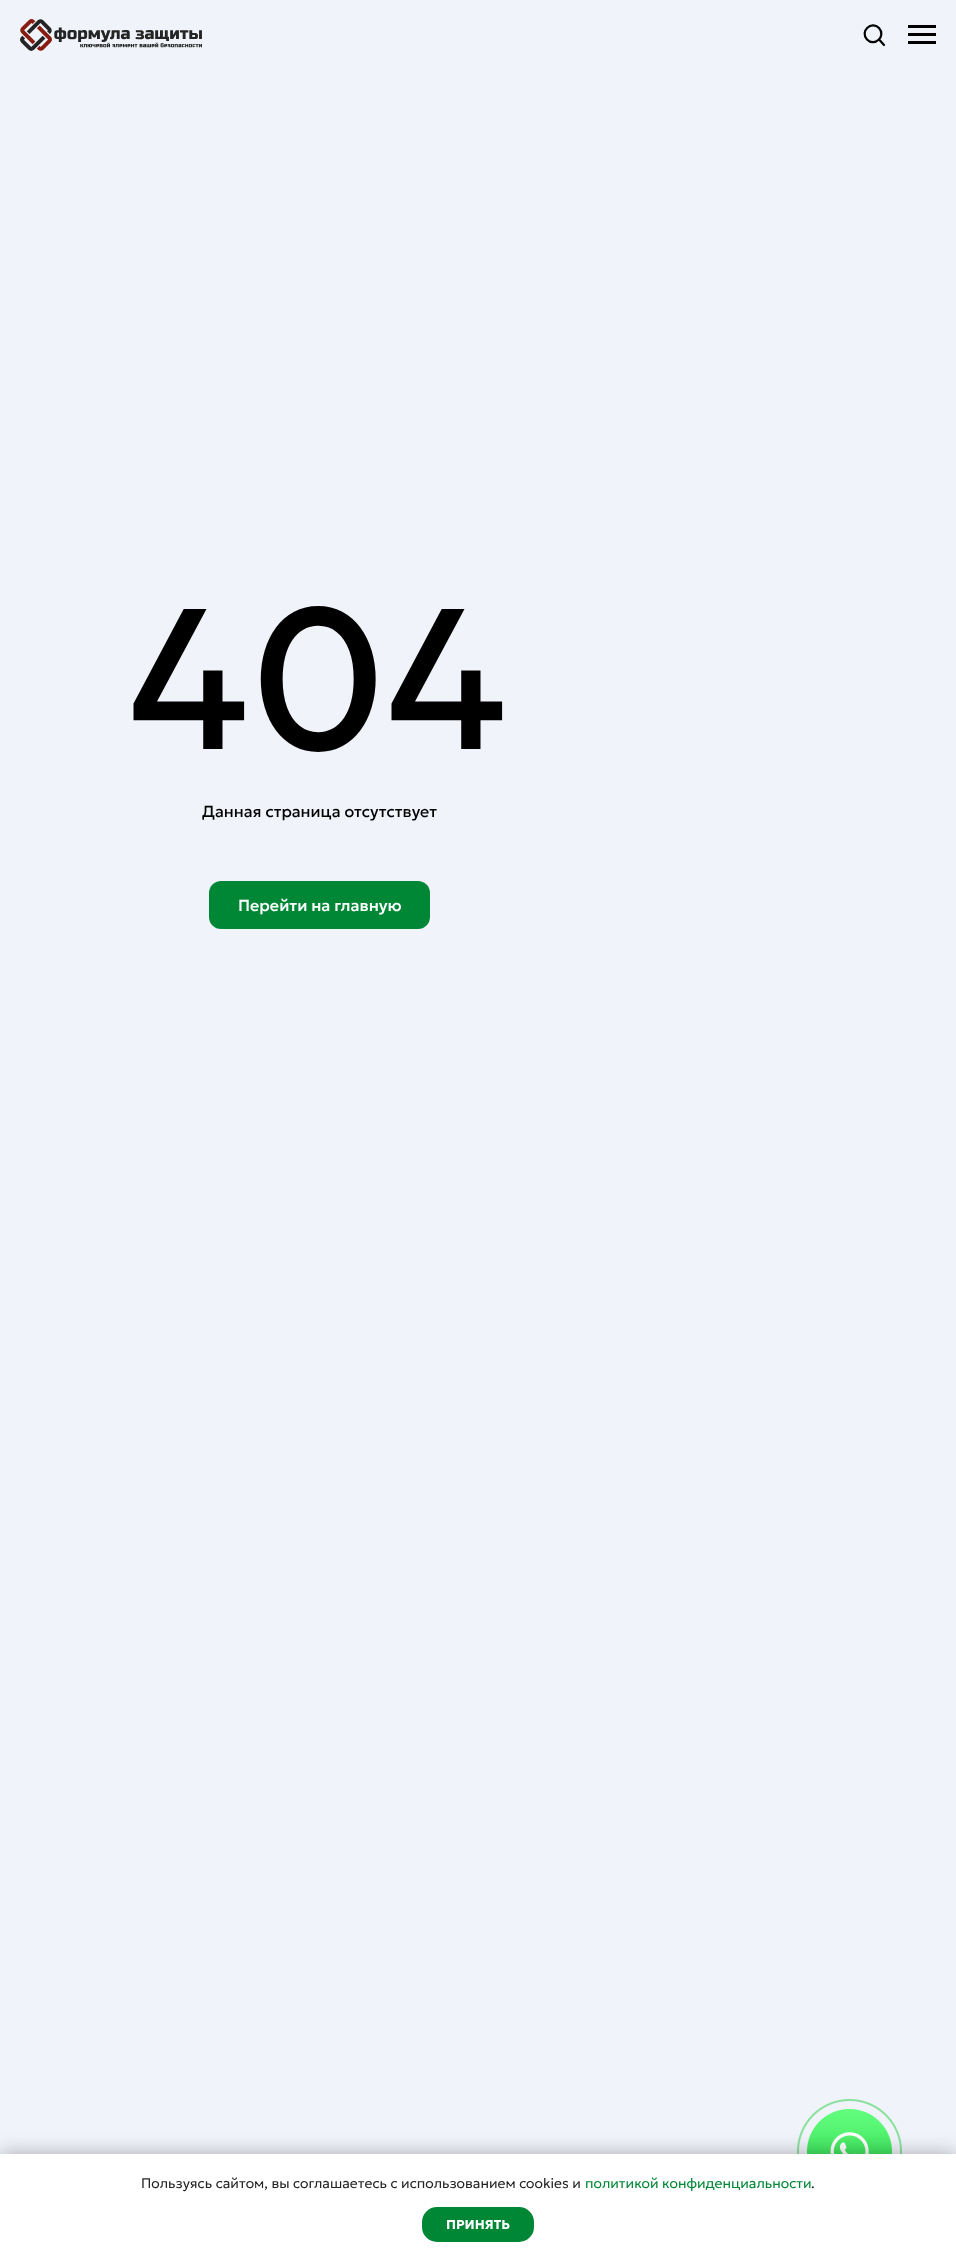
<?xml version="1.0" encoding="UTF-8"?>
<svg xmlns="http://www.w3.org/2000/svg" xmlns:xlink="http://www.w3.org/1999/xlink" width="956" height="2262">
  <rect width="100%" height="100%" fill="#f0f3f9" />
  <image x="20" y="19" width="182" height="32" xlink:href="image1.png" />
  <path d="M 879 28 c 7.5 8 -4.5 19.5 -12 11.5 c -7.5 -8 4.5 -19.5 12 -11.5 z" fill="none" stroke="#000000" stroke-width="2.2" />
  <path d="M 880 40.5 l 4 4.5" fill="none" stroke="#000000" stroke-width="2.2" stroke-linecap="round" />
  <rect x="908" y="25" width="28" height="3" fill="#000000" />
  <rect x="908" y="33" width="28" height="3" fill="#000000" />
  <rect x="908" y="41" width="28" height="3" fill="#000000" />
  <image x="797" y="2099" width="105" height="55" xlink:href="image2.png" />
  <rect x="209" y="881" width="221" height="48" rx="12" fill="#008736" />
  <rect y="2154" width="956" height="108" fill="#000000" fill-opacity="0.3" filter="blur(10px)" />
  <rect y="2154" width="956" height="108" fill="#ffffff" />
  <rect x="422" y="2207" width="112" height="35" rx="15" fill="#008736" />
  <text x="130" y="749" style="font-family: Geologica; font-size: 200px; fill: #000000">404</text>
  <text x="202" y="817" style="font-family: Geologica; font-size: 16px; fill: #000000">Данная страница отсутствует</text>
  <text x="238" y="911" style="font-family: Geologica; font-size: 16px; font-weight: 500; fill: #ffffff">Перейти на главную</text>
  <text x="141" y="2188" style="font-family: Geologica; font-size: 14px; font-weight: 300; fill: #242424">Пользуясь сайтом, вы соглашаетесь с использованием cookies и</text>
  <text x="585" y="2188" style="font-family: Geologica; font-size: 14px; font-weight: 300; fill: #008736">политикой конфиденциальности</text>
  <text x="811" y="2188" style="font-family: Geologica; font-size: 14px; font-weight: 300; fill: #242424">.</text>
  <text x="446" y="2229" style="font-family: Geologica; font-size: 13px; font-weight: bold; fill: #ffffff">ПРИНЯТЬ</text>
</svg>
